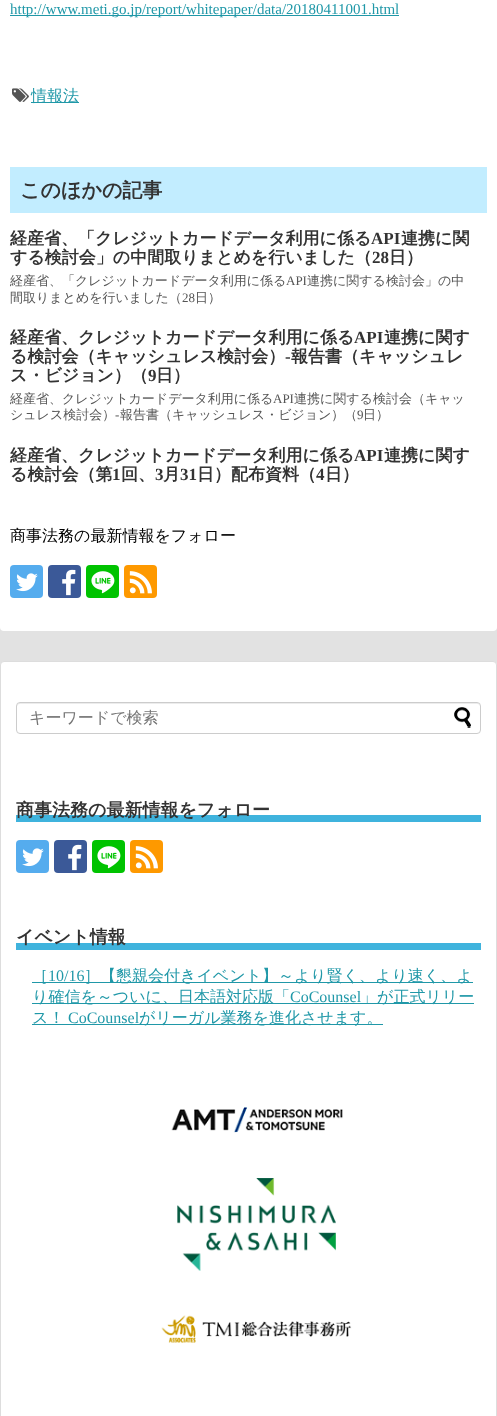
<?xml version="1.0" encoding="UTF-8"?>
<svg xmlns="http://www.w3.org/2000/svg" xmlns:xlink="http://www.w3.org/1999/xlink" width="497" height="1416">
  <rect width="100%" height="100%" fill="#e2e2e2" />
  <rect y="-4" width="497" height="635" rx="4" fill="#ffffff" />
  <rect x="10" y="15" width="389" height="1" fill="#2098a8" />
  <image x="12" y="88" width="17" height="14" xlink:href="image1.png" />
  <rect x="31" y="102" width="48" height="1" fill="#2098a8" />
  <rect x="10" y="167" width="477" height="46" fill="#c2edff" />
  <rect x="10" y="565" width="33" height="33" rx="4" fill="#55acee" />
  <image x="16" y="573" width="22" height="19" xlink:href="image2.png" />
  <rect x="48" y="565" width="33" height="33" rx="4" fill="#3b5998" />
  <image x="62" y="569" width="14" height="27" xlink:href="image3.png" />
  <rect x="86" y="565" width="33" height="33" rx="4" fill="#00c300" />
  <image x="91" y="571" width="24" height="23" xlink:href="image4.png" />
  <rect x="124" y="565" width="33" height="33" rx="4" fill="#fe9900" />
  <image x="129" y="571" width="23" height="23" xlink:href="image5.png" />
  <rect x="0.5" y="661.5" width="496" height="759" rx="3.5" fill="#ffffff" stroke="#dddddd" />
  <path d="M 20 704 h 457 c 2 0 3 1 3 3 c 0 -2 -1 -4 -3 -4 h -458 l -2 2 v 2 c 0 -2 1 -3 3 -3 z" fill="#ececec" />
  <rect x="16.5" y="702.5" width="464" height="31" rx="3.5" fill="none" stroke="#cccccc" />
  <image x="454" y="707" width="17" height="21" xlink:href="image6.png" />
  <rect x="16" y="815" width="465" height="7" fill="#3fb3dd" />
  <rect x="16" y="840" width="33" height="33" rx="4" fill="#55acee" />
  <image x="22" y="848" width="22" height="19" xlink:href="image2.png" />
  <rect x="54" y="840" width="33" height="33" rx="4" fill="#3b5998" />
  <image x="68" y="844" width="14" height="27" xlink:href="image3.png" />
  <rect x="92" y="840" width="33" height="33" rx="4" fill="#00c300" />
  <image x="97" y="846" width="24" height="23" xlink:href="image4.png" />
  <rect x="130" y="840" width="33" height="33" rx="4" fill="#fe9900" />
  <image x="135" y="846" width="23" height="23" xlink:href="image5.png" />
  <rect x="16" y="943" width="465" height="7" fill="#3fb3dd" />
  <rect x="32" y="982" width="441" height="1" fill="#2098a8" />
  <rect x="32" y="1003" width="442" height="1" fill="#2098a8" />
  <rect x="32" y="1024" width="351" height="1" fill="#2098a8" />
  <image x="171" y="1107" width="172" height="26" xlink:href="image7.png" />
  <image x="177" y="1178" width="159" height="93" xlink:href="image8.png" />
  <image x="161" y="1315" width="191" height="28" xlink:href="image9.png" />
  <text x="10" y="14" style="font-family: Liberation Serif; font-size: 15px; fill: #2098a8">http://www.meti.go.jp/report/whitepaper/data/20180411001.html</text>
  <text x="31" y="101" style="font-family: WenQuanYi Zen Hei; font-size: 16px; font-weight: 500; fill: #2098a8">情報法</text>
  <text x="20" y="197" style="font-family: WenQuanYi Zen Hei; font-size: 20px; font-weight: bold; fill: #333333">このほかの記事</text>
  <text x="10" y="244" style="font-family: WenQuanYi Zen Hei; font-size: 17px; font-weight: bold; fill: #333333">経産省、「クレジットカードデータ利用に係る</text>
  <text x="371" y="244" style="font-family: Liberation Serif; font-size: 17px; font-weight: bold; fill: #333333">API</text>
  <text x="401" y="244" style="font-family: WenQuanYi Zen Hei; font-size: 17px; font-weight: bold; fill: #333333">連携に関</text>
  <text x="10" y="263" style="font-family: WenQuanYi Zen Hei; font-size: 17px; font-weight: bold; fill: #333333">する検討会」の中間取りまとめを行いました（</text>
  <text x="372" y="263" style="font-family: Liberation Serif; font-size: 17px; font-weight: bold; fill: #333333">28</text>
  <text x="389" y="263" style="font-family: WenQuanYi Zen Hei; font-size: 17px; font-weight: bold; fill: #333333">日）</text>
  <text x="10" y="285" style="font-family: WenQuanYi Zen Hei; font-size: 13px; font-weight: 500; fill: #555555">経産省、「クレジットカードデータ利用に係る</text>
  <text x="286" y="285" style="font-family: Liberation Serif; font-size: 13px; fill: #555555">API</text>
  <text x="307" y="285" style="font-family: WenQuanYi Zen Hei; font-size: 13px; font-weight: 500; fill: #555555">連携に関する検討会」の中</text>
  <text x="10" y="302" style="font-family: WenQuanYi Zen Hei; font-size: 13px; font-weight: 500; fill: #555555">間取りまとめを行いました（</text>
  <text x="182" y="302" style="font-family: Liberation Serif; font-size: 13px; fill: #555555">28</text>
  <text x="195" y="302" style="font-family: WenQuanYi Zen Hei; font-size: 13px; font-weight: 500; fill: #555555">日）</text>
  <text x="10" y="343" style="font-family: WenQuanYi Zen Hei; font-size: 17px; font-weight: bold; fill: #333333">経産省、クレジットカードデータ利用に係る</text>
  <text x="354" y="343" style="font-family: Liberation Serif; font-size: 17px; font-weight: bold; fill: #333333">API</text>
  <text x="384" y="343" style="font-family: WenQuanYi Zen Hei; font-size: 17px; font-weight: bold; fill: #333333">連携に関す</text>
  <text x="10" y="362" style="font-family: WenQuanYi Zen Hei; font-size: 17px; font-weight: bold; fill: #333333">る検討会（キャッシュレス検討会）</text>
  <text x="285" y="362" style="font-family: Liberation Serif; font-size: 17px; font-weight: bold; fill: #333333">-</text>
  <text x="291" y="362" style="font-family: WenQuanYi Zen Hei; font-size: 17px; font-weight: bold; fill: #333333">報告書（キャッシュレ</text>
  <text x="10" y="381" style="font-family: WenQuanYi Zen Hei; font-size: 17px; font-weight: bold; fill: #333333">ス・ビジョン）（</text>
  <text x="148" y="381" style="font-family: Liberation Serif; font-size: 17px; font-weight: bold; fill: #333333">9</text>
  <text x="156" y="381" style="font-family: WenQuanYi Zen Hei; font-size: 17px; font-weight: bold; fill: #333333">日）</text>
  <text x="10" y="403" style="font-family: WenQuanYi Zen Hei; font-size: 13px; font-weight: 500; fill: #555555">経産省、クレジットカードデータ利用に係る</text>
  <text x="273" y="403" style="font-family: Liberation Serif; font-size: 13px; fill: #555555">API</text>
  <text x="294" y="403" style="font-family: WenQuanYi Zen Hei; font-size: 13px; font-weight: 500; fill: #555555">連携に関する検討会（キャッ</text>
  <text x="10" y="419" style="font-family: WenQuanYi Zen Hei; font-size: 13px; font-weight: 500; fill: #555555">シュレス検討会）</text>
  <text x="115" y="419" style="font-family: Liberation Serif; font-size: 13px; fill: #555555">-</text>
  <text x="120" y="419" style="font-family: WenQuanYi Zen Hei; font-size: 13px; font-weight: 500; fill: #555555">報告書（キャッシュレス・ビジョン）（</text>
  <text x="357" y="419" style="font-family: Liberation Serif; font-size: 13px; fill: #555555">9</text>
  <text x="363" y="419" style="font-family: WenQuanYi Zen Hei; font-size: 13px; font-weight: 500; fill: #555555">日）</text>
  <text x="10" y="461" style="font-family: WenQuanYi Zen Hei; font-size: 17px; font-weight: bold; fill: #333333">経産省、クレジットカードデータ利用に係る</text>
  <text x="354" y="461" style="font-family: Liberation Serif; font-size: 17px; font-weight: bold; fill: #333333">API</text>
  <text x="384" y="461" style="font-family: WenQuanYi Zen Hei; font-size: 17px; font-weight: bold; fill: #333333">連携に関す</text>
  <text x="10" y="480" style="font-family: WenQuanYi Zen Hei; font-size: 17px; font-weight: bold; fill: #333333">る検討会（第</text>
  <text x="112" y="480" style="font-family: Liberation Serif; font-size: 17px; font-weight: bold; fill: #333333">1</text>
  <text x="121" y="480" style="font-family: WenQuanYi Zen Hei; font-size: 17px; font-weight: bold; fill: #333333">回、</text>
  <text x="155" y="480" style="font-family: Liberation Serif; font-size: 17px; font-weight: bold; fill: #333333">3</text>
  <text x="163" y="480" style="font-family: WenQuanYi Zen Hei; font-size: 17px; font-weight: bold; fill: #333333">月</text>
  <text x="180" y="480" style="font-family: Liberation Serif; font-size: 17px; font-weight: bold; fill: #333333">31</text>
  <text x="197" y="480" style="font-family: WenQuanYi Zen Hei; font-size: 17px; font-weight: bold; fill: #333333">日）配布資料（</text>
  <text x="316" y="480" style="font-family: Liberation Serif; font-size: 17px; font-weight: bold; fill: #333333">4</text>
  <text x="325" y="480" style="font-family: WenQuanYi Zen Hei; font-size: 17px; font-weight: bold; fill: #333333">日）</text>
  <text x="10" y="541" style="font-family: WenQuanYi Zen Hei; font-size: 16px; font-weight: 500; fill: #000000">商事法務の最新情報をフォロー</text>
  <text x="29" y="723" style="font-family: WenQuanYi Zen Hei; font-size: 16px; font-weight: 500; fill: #757575">キーワードで検索</text>
  <text x="16" y="816" style="font-family: WenQuanYi Zen Hei; font-size: 18px; font-weight: bold; fill: #333333">商事法務の最新情報をフォロー</text>
  <text x="16" y="943" style="font-family: WenQuanYi Zen Hei; font-size: 18px; font-weight: bold; fill: #333333">イベント情報</text>
  <text x="32" y="981" style="font-family: WenQuanYi Zen Hei; font-size: 16px; font-weight: 500; fill: #2098a8">［</text>
  <text x="48" y="981" style="font-family: Liberation Serif; font-size: 16px; fill: #2098a8">10/16</text>
  <text x="84" y="981" style="font-family: WenQuanYi Zen Hei; font-size: 16px; font-weight: 500; fill: #2098a8">］【懇親会付きイベント】～より賢く、より速く、よ</text>
  <text x="32" y="1002" style="font-family: WenQuanYi Zen Hei; font-size: 16px; font-weight: 500; fill: #2098a8">り確信を～ついに、日本語対応版「</text>
  <text x="290" y="1002" style="font-family: Liberation Serif; font-size: 16px; fill: #2098a8">CoCounsel</text>
  <text x="361" y="1002" style="font-family: WenQuanYi Zen Hei; font-size: 16px; font-weight: 500; fill: #2098a8">」が正式リリー</text>
  <text x="32" y="1023" style="font-family: WenQuanYi Zen Hei; font-size: 16px; font-weight: 500; fill: #2098a8">ス！</text>
  <text x="68" y="1023" style="font-family: Liberation Serif; font-size: 16px; fill: #2098a8">CoCounsel</text>
  <text x="139" y="1023" style="font-family: WenQuanYi Zen Hei; font-size: 16px; font-weight: 500; fill: #2098a8">がリーガル業務を進化させます。</text>
</svg>
